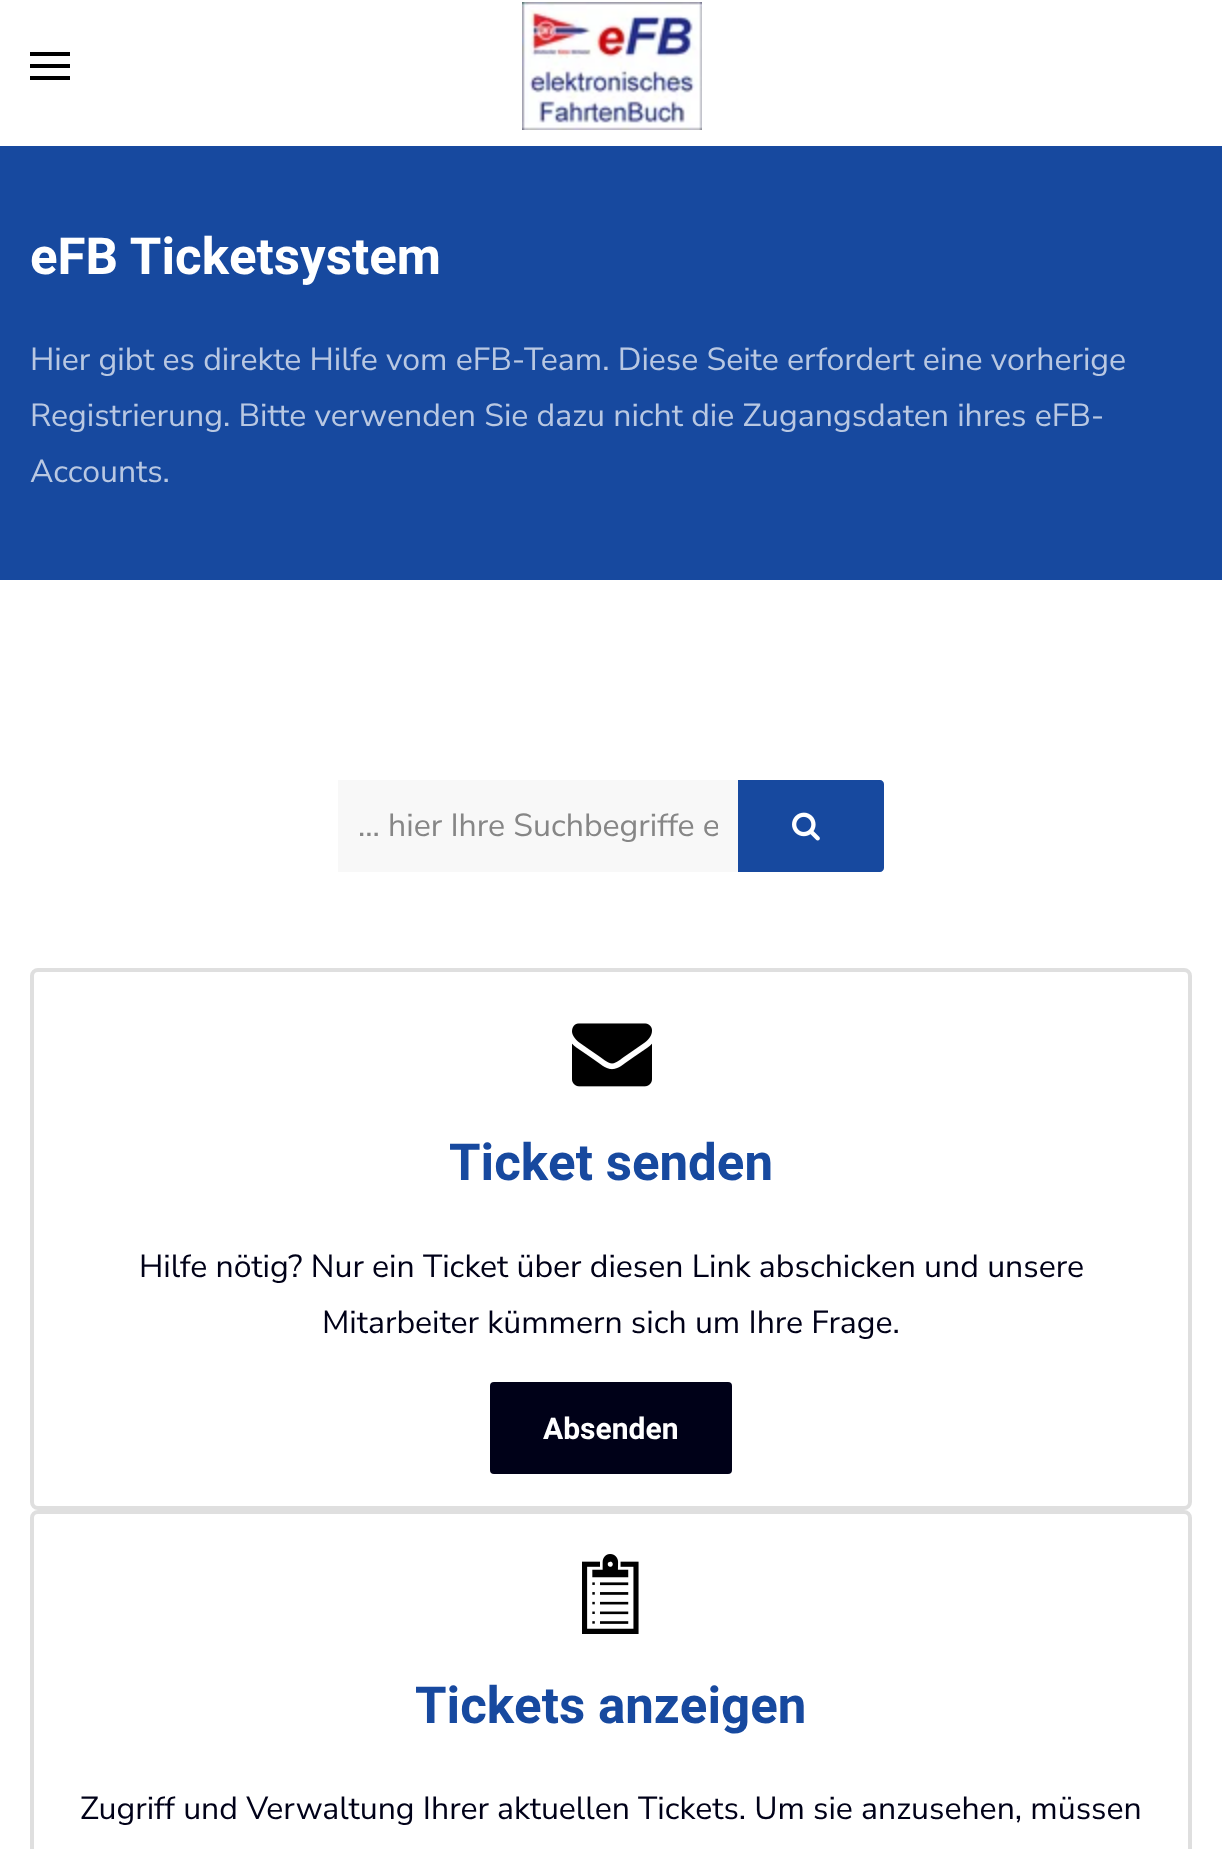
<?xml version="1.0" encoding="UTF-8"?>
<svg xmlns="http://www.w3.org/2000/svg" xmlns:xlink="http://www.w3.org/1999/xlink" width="1222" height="1849">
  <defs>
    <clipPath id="clip1"><rect x="358" y="804" width="360" height="44" /></clipPath>
  </defs>
  <rect width="100%" height="100%" fill="#ffffff" />
  <rect x="30" y="52" width="40" height="4" fill="#000000" />
  <rect x="30" y="64" width="40" height="4" fill="#000000" />
  <rect x="30" y="76" width="40" height="4" fill="#000000" />
  <image x="522" y="2" width="180" height="128" xlink:href="image1.png" />
  <rect y="146" width="1222" height="434" fill="#17499f" />
  <path d="M 734 780 h 146 c 2 0 4 2 4 4 v 84 c 0 2 -2 4 -4 4 h -146 z" fill="#17499f" />
  <rect x="338" y="780" width="400" height="92" fill="#f8f8f8" />
  <image x="792" y="812" width="28" height="29" xlink:href="image2.png" />
  <rect x="32" y="970" width="1158" height="538" rx="6" fill="none" stroke="#dfdfdf" stroke-width="4" />
  <image x="572" y="1023" width="80" height="64" xlink:href="image3.png" />
  <rect x="490" y="1382" width="242" height="92" rx="4" fill="#000118" />
  <rect x="32" y="1512" width="1158" height="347" rx="6" fill="none" stroke="#dfdfdf" stroke-width="4" />
  <image x="582" y="1554" width="57" height="80" xlink:href="image4.png" />
  <text x="30" y="274" style="font-family: Heebo; font-size: 51px; font-weight: bold; fill: #ffffff">eFB Ticketsystem</text>
  <text x="30" y="370" style="font-family: Nunito Sans; font-size: 32px; font-weight: 200; fill: #b9c8e2">Hier gibt es direkte Hilfe vom eFB-Team. Diese Seite erfordert eine vorherige</text>
  <text x="30" y="426" style="font-family: Nunito Sans; font-size: 32px; font-weight: 200; fill: #b9c8e2">Registrierung. Bitte verwenden Sie dazu nicht die Zugangsdaten ihres eFB-</text>
  <text x="30" y="482" style="font-family: Nunito Sans; font-size: 32px; font-weight: 200; fill: #b9c8e2">Accounts.</text>
  <g clip-path="url(#clip1)">
    <text x="358" y="836" style="font-family: Nunito Sans; font-size: 32px; font-weight: 200; fill: #868686">... hier Ihre Suchbegriffe e</text>
  </g>
  <text x="449" y="1180" style="font-family: Heebo; font-size: 51px; font-weight: bold; fill: #17499f">Ticket senden</text>
  <text x="139" y="1277" style="font-family: Nunito Sans; font-size: 32px; font-weight: 200; fill: #000118">Hilfe nötig? Nur ein Ticket über diesen Link abschicken und unsere</text>
  <text x="322" y="1333" style="font-family: Nunito Sans; font-size: 32px; font-weight: 200; fill: #000118">Mitarbeiter kümmern sich um Ihre Frage.</text>
  <text x="543" y="1439" style="font-family: Heebo; font-size: 30px; font-weight: bold; fill: #ffffff">Absenden</text>
  <text x="415" y="1723" style="font-family: Heebo; font-size: 51px; font-weight: bold; fill: #17499f">Tickets anzeigen</text>
  <text x="80" y="1819" style="font-family: Nunito Sans; font-size: 32px; font-weight: 200; fill: #000118">Zugriff und Verwaltung Ihrer aktuellen Tickets. Um sie anzusehen, müssen</text>
</svg>
